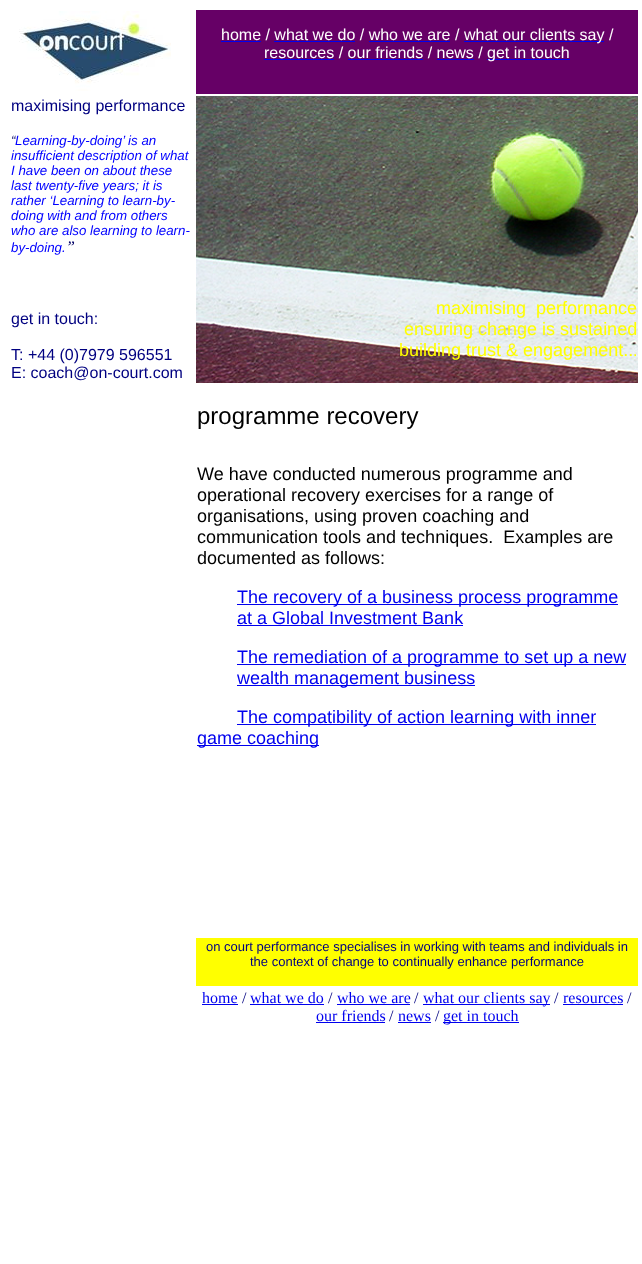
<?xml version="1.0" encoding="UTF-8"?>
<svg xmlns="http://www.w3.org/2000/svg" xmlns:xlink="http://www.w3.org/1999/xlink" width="642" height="1264">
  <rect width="100%" height="100%" fill="#ffffff" />
  <image x="19" y="11" width="152" height="80" xlink:href="image1.png" />
  <rect x="196" y="10" width="442" height="84" fill="#660066" />
  <rect x="221" y="41" width="40" height="1" fill="#0000ee" />
  <rect x="274" y="41" width="81" height="1" fill="#0000ee" />
  <rect x="369" y="41" width="81" height="1" fill="#0000ee" />
  <rect x="464" y="41" width="140" height="1" fill="#0000ee" />
  <rect x="264" y="59" width="70" height="1" fill="#0000ee" />
  <rect x="348" y="59" width="75" height="1" fill="#0000ee" />
  <rect x="437" y="59" width="37" height="1" fill="#0000ee" />
  <rect x="487" y="59" width="83" height="1" fill="#0000ee" />
  <image x="196" y="96" width="442" height="287" xlink:href="image2.png" />
  <rect x="237" y="604" width="381" height="1" fill="#0000ee" />
  <rect x="237" y="625" width="226" height="1" fill="#0000ee" />
  <rect x="237" y="664" width="389" height="1" fill="#0000ee" />
  <rect x="237" y="685" width="238" height="1" fill="#0000ee" />
  <rect x="237" y="724" width="359" height="1" fill="#0000ee" />
  <rect x="197" y="745" width="122" height="1" fill="#0000ee" />
  <rect x="196" y="938" width="442" height="48" fill="#ffff00" />
  <rect x="202" y="1004" width="36" height="1" fill="#0000ee" />
  <rect x="250" y="1004" width="74" height="1" fill="#0000ee" />
  <rect x="337" y="1004" width="73" height="1" fill="#0000ee" />
  <rect x="423" y="1004" width="127" height="1" fill="#0000ee" />
  <rect x="563" y="1004" width="60" height="1" fill="#0000ee" />
  <rect x="316" y="1022" width="69" height="1" fill="#0000ee" />
  <rect x="398" y="1022" width="33" height="1" fill="#0000ee" />
  <rect x="443" y="1022" width="76" height="1" fill="#0000ee" />
  <text x="221" y="40" style="font-family: Liberation Sans; font-size: 16px; fill: #ffffff">home / what we do / who we are /</text>
  <text x="464" y="40" style="font-family: Liberation Sans; font-size: 16px; fill: #ffffff">what our clients say /</text>
  <text x="264" y="58" style="font-family: Liberation Sans; font-size: 16px; fill: #ffffff">resources / our friends / news /</text>
  <text x="487" y="58" style="font-family: Liberation Sans; font-size: 16px; fill: #ffffff">get in touch</text>
  <text x="11" y="111" style="font-family: Liberation Sans; font-size: 16px; fill: #000080">maximising performance</text>
  <text x="11" y="145" style="font-family: Liberation Sans; font-size: 13.3px; font-style: italic; fill: #000066">“</text>
  <text x="15" y="145" style="font-family: Liberation Sans; font-size: 13.3px; font-style: italic; fill: #0000ff">Learning-by-doing’ is an</text>
  <text x="11" y="160" style="font-family: Liberation Sans; font-size: 13.3px; font-style: italic; fill: #0000ff">insufficient description of what</text>
  <text x="11" y="175" style="font-family: Liberation Sans; font-size: 13.3px; font-style: italic; fill: #0000ff">I have been on about these</text>
  <text x="11" y="190" style="font-family: Liberation Sans; font-size: 13.3px; font-style: italic; fill: #0000ff">last twenty-five years; it is</text>
  <text x="11" y="205" style="font-family: Liberation Sans; font-size: 13.3px; font-style: italic; fill: #0000ff">rather ‘Learning to learn-by-</text>
  <text x="11" y="220" style="font-family: Liberation Sans; font-size: 13.3px; font-style: italic; fill: #0000ff">doing with and from others</text>
  <text x="11" y="235" style="font-family: Liberation Sans; font-size: 13.3px; font-style: italic; fill: #0000ff">who are also learning to learn-</text>
  <text x="11" y="252" style="font-family: Liberation Sans; font-size: 13.3px; font-style: italic; fill: #0000ff">by-doing.</text>
  <text x="66" y="252" style="font-family: Liberation Serif; font-size: 16px; font-style: italic; fill: #000066">”</text>
  <text x="11" y="324" style="font-family: Liberation Sans; font-size: 16px; fill: #000080">get in touch:</text>
  <text x="11" y="360" style="font-family: Liberation Sans; font-size: 16px; fill: #000080">T: +44 (0)7979 596551</text>
  <text x="11" y="378" style="font-family: Liberation Sans; font-size: 16px; fill: #000080">E: coach@on-court.com</text>
  <text x="436" y="314" style="font-family: Liberation Sans; font-size: 18px; fill: #ffff00">maximising</text>
  <text x="536" y="314" style="font-family: Liberation Sans; font-size: 18px; fill: #ffff00">performance</text>
  <text x="404" y="335" style="font-family: Liberation Sans; font-size: 18px; fill: #ffff00">ensuring change is sustained</text>
  <text x="399" y="356" style="font-family: Liberation Sans; font-size: 18px; fill: #ffff00">building trust &amp; engagement..</text>
  <text x="633" y="356" style="font-family: Liberation Sans; font-size: 16px; fill: #ffff00">.</text>
  <text x="197" y="424" style="font-family: Liberation Sans; font-size: 24px; fill: #000000">programme recovery</text>
  <text x="197" y="480" style="font-family: Liberation Sans; font-size: 18px; fill: #000000">We have conducted numerous programme and</text>
  <text x="197" y="501" style="font-family: Liberation Sans; font-size: 18px; fill: #000000">operational recovery exercises for a range of</text>
  <text x="197" y="522" style="font-family: Liberation Sans; font-size: 18px; fill: #000000">organisations, using proven coaching and</text>
  <text x="197" y="543" style="font-family: Liberation Sans; font-size: 18px; fill: #000000" xml:space="preserve">communication tools and techniques.  Examples are</text>
  <text x="197" y="564" style="font-family: Liberation Sans; font-size: 18px; fill: #000000">documented as follows:</text>
  <text x="237" y="603" style="font-family: Liberation Sans; font-size: 18px; fill: #0000ee">The recovery of a business process programme</text>
  <text x="237" y="624" style="font-family: Liberation Sans; font-size: 18px; fill: #0000ee">at a Global Investment Bank</text>
  <text x="237" y="663" style="font-family: Liberation Sans; font-size: 18px; fill: #0000ee">The remediation of a programme to set up a new</text>
  <text x="237" y="684" style="font-family: Liberation Sans; font-size: 18px; fill: #0000ee">wealth management business</text>
  <text x="237" y="723" style="font-family: Liberation Sans; font-size: 18px; fill: #0000ee">The compatibility of action learning with inner</text>
  <text x="197" y="744" style="font-family: Liberation Sans; font-size: 18px; fill: #0000ee">game coaching</text>
  <text x="206" y="951" style="font-family: Liberation Sans; font-size: 13px; fill: #000080">on court performance specialises in working with teams and individuals in</text>
  <text x="250" y="966" style="font-family: Liberation Sans; font-size: 13px; fill: #000080">the context of change to continually enhance performance</text>
  <text x="202" y="1003" style="font-family: Liberation Serif; font-size: 16px; fill: #0000ee">home</text>
  <text x="242" y="1003" style="font-family: Liberation Serif; font-size: 16px; fill: #000080">/</text>
  <text x="250" y="1003" style="font-family: Liberation Serif; font-size: 16px; fill: #0000ee">what we do</text>
  <text x="328" y="1003" style="font-family: Liberation Serif; font-size: 16px; fill: #000080">/</text>
  <text x="337" y="1003" style="font-family: Liberation Serif; font-size: 16px; fill: #0000ee">who we are</text>
  <text x="414" y="1003" style="font-family: Liberation Serif; font-size: 16px; fill: #000080">/</text>
  <text x="423" y="1003" style="font-family: Liberation Serif; font-size: 16px; fill: #0000ee">what our clients say</text>
  <text x="554" y="1003" style="font-family: Liberation Serif; font-size: 16px; fill: #000080">/</text>
  <text x="563" y="1003" style="font-family: Liberation Serif; font-size: 16px; fill: #0000ee">resources</text>
  <text x="627" y="1003" style="font-family: Liberation Serif; font-size: 16px; fill: #000080">/</text>
  <text x="316" y="1021" style="font-family: Liberation Serif; font-size: 16px; fill: #0000ee">our friends</text>
  <text x="389" y="1021" style="font-family: Liberation Serif; font-size: 16px; fill: #000080">/</text>
  <text x="398" y="1021" style="font-family: Liberation Serif; font-size: 16px; fill: #0000ee">news</text>
  <text x="435" y="1021" style="font-family: Liberation Serif; font-size: 16px; fill: #000080">/</text>
  <text x="443" y="1021" style="font-family: Liberation Serif; font-size: 16px; fill: #0000ee">get in touch</text>
</svg>
